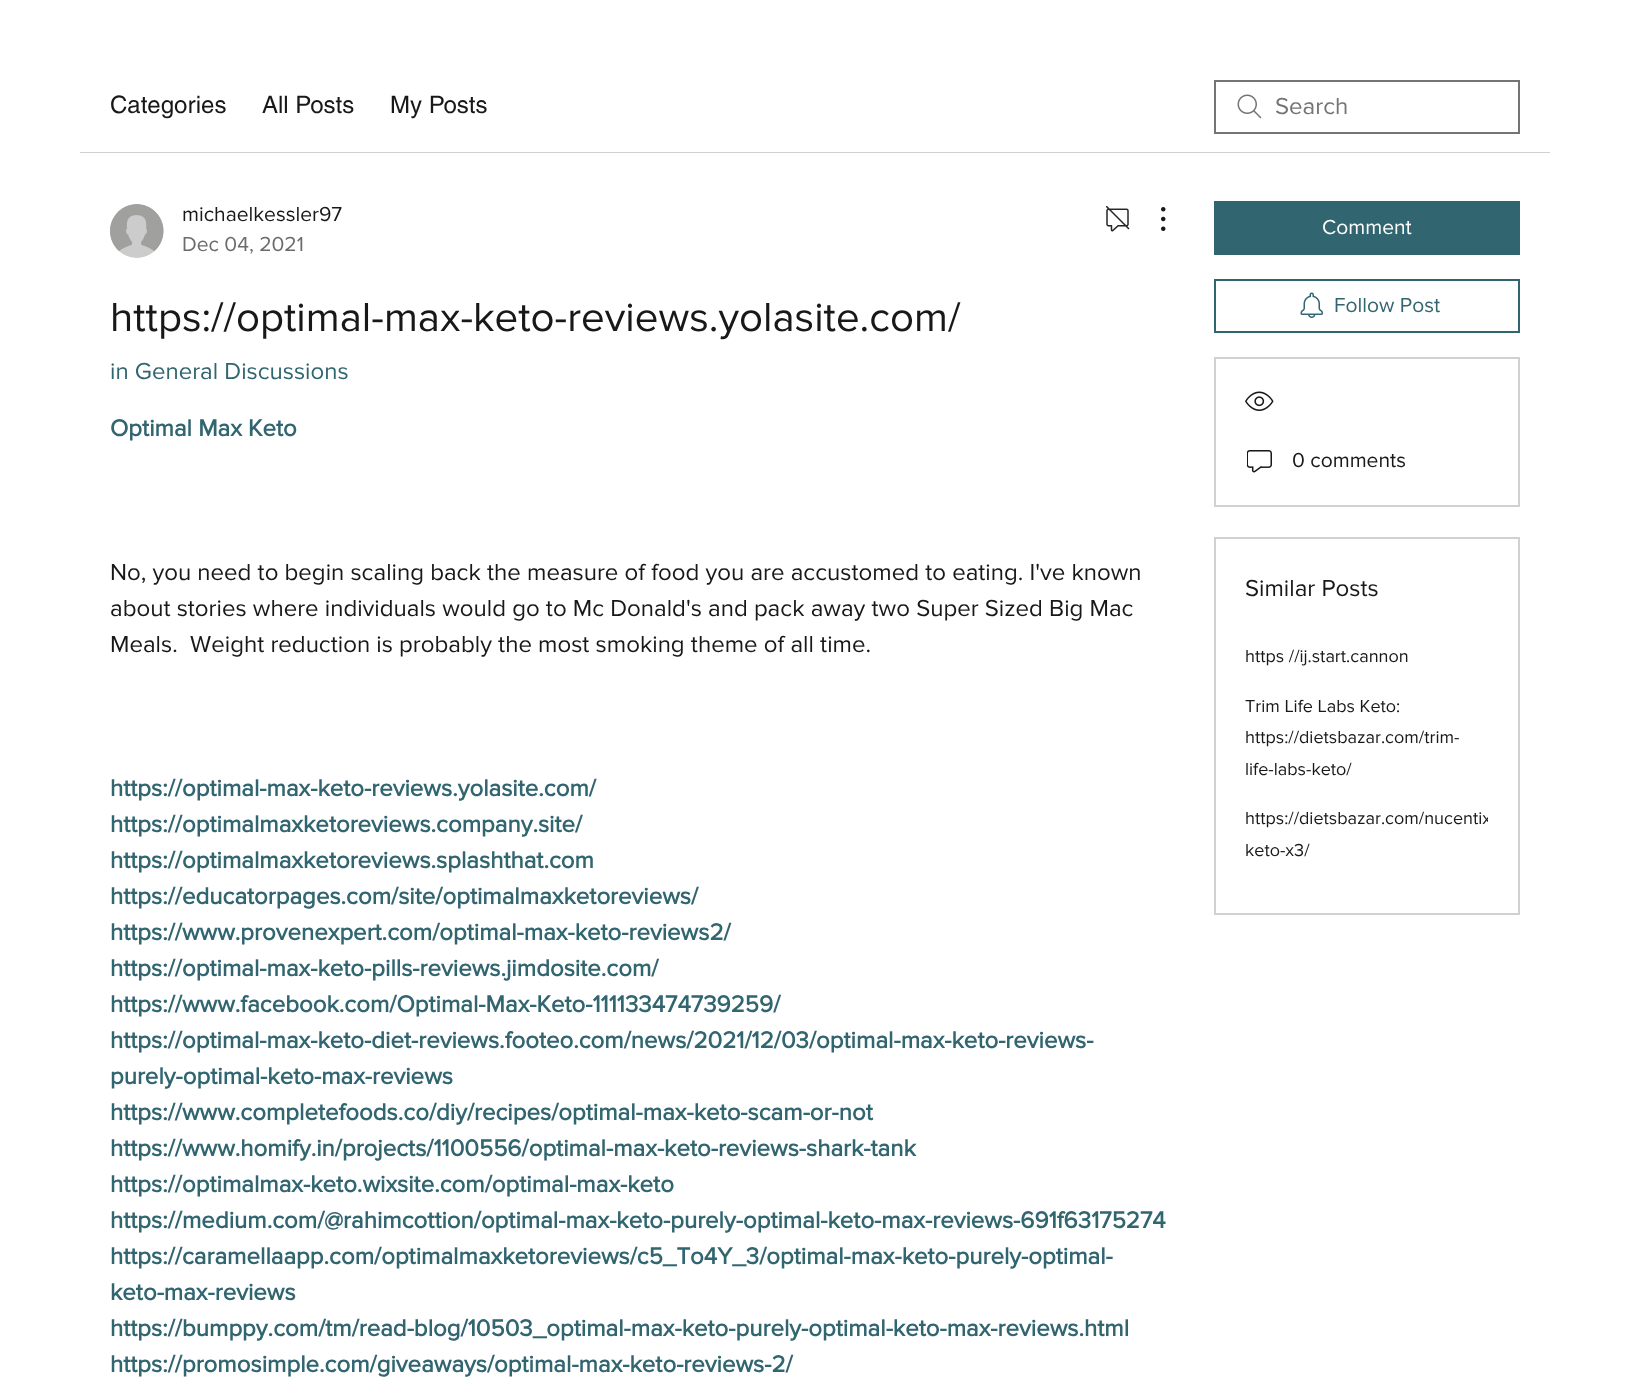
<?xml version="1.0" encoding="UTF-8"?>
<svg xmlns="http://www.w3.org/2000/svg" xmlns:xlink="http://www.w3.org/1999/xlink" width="1629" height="1386">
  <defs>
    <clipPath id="clip1"><rect x="1245" y="803" width="243" height="63" /></clipPath>
  </defs>
  <rect width="100%" height="100%" fill="#ffffff" />
  <rect x="80" y="152" width="1470" height="1" fill="#d1d1d1" />
  <image x="1237" y="94" width="25" height="25" xlink:href="image1.png" />
  <rect x="1215" y="81" width="304" height="52" fill="none" stroke="#747474" stroke-width="2" />
  <image x="110" y="204" width="54" height="54" xlink:href="image2.png" />
  <image x="1106" y="206" width="24" height="26" xlink:href="image3.png" />
  <image x="1161" y="207" width="5" height="24" xlink:href="image4.png" />
  <rect x="1214" y="201" width="306" height="54" fill="#316570" />
  <rect x="1215" y="280" width="304" height="52" fill="none" stroke="#316570" stroke-width="2" />
  <image x="1300" y="292" width="23" height="26" xlink:href="image5.png" />
  <rect x="1215" y="358" width="304" height="148" fill="none" stroke="#d1d1d1" stroke-width="2" />
  <image x="1245" y="391" width="29" height="20" xlink:href="image6.png" />
  <image x="1247" y="450" width="25" height="23" xlink:href="image7.png" />
  <rect x="1215" y="538" width="304" height="376" fill="none" stroke="#d1d1d1" stroke-width="2" />
  <text x="110" y="113" style="font-family: helvetica; font-size: 24px; fill: #181818">Categories</text>
  <text x="262" y="113" style="font-family: helvetica; font-size: 24px; fill: #181818">All Posts</text>
  <text x="390" y="113" style="font-family: helvetica; font-size: 24px; fill: #181818">My Posts</text>
  <text x="1275" y="114" style="font-family: 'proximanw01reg'; font-size: 24px; fill: #747474">Search</text>
  <text x="182" y="221" style="font-family: 'proximanw01reg'; font-size: 21px; fill: #181818">michaelkessler97</text>
  <text x="182" y="251" style="font-family: 'proximanw01reg'; font-size: 21px; fill: #6b6b6b">Dec 04, 2021</text>
  <text x="110" y="331" style="font-family: 'proximanw01reg'; font-size: 42px; fill: #181818">https://optimal-max-keto-reviews.yolasite.com/</text>
  <text x="110" y="379" style="font-family: 'proximanw01reg'; font-size: 24px; fill: #316570">in General Discussions</text>
  <text x="110" y="436" style="font-family: 'proximanw01reg'; font-size: 24px; font-weight: bold; fill: #316570">Optimal Max Keto</text>
  <text x="110" y="580" style="font-family: 'proximanw01reg'; font-size: 24px; fill: #181818">No, you need to begin scaling back the measure of food you are accustomed to eating. I've known</text>
  <text x="110" y="616" style="font-family: 'proximanw01reg'; font-size: 24px; fill: #181818">about stories where individuals would go to Mc Donald's and pack away two Super Sized Big Mac</text>
  <text x="110" y="652" style="font-family: 'proximanw01reg'; font-size: 24px; fill: #181818" xml:space="preserve">Meals.  Weight reduction is probably the most smoking theme of all time.</text>
  <text x="110" y="796" style="font-family: 'proximanw01reg'; font-size: 24px; font-weight: bold; fill: #316570">https://optimal-max-keto-reviews.yolasite.com/</text>
  <text x="110" y="832" style="font-family: 'proximanw01reg'; font-size: 24px; font-weight: bold; fill: #316570">https://optimalmaxketoreviews.company.site/</text>
  <text x="110" y="868" style="font-family: 'proximanw01reg'; font-size: 24px; font-weight: bold; fill: #316570">https://optimalmaxketoreviews.splashthat.com</text>
  <text x="110" y="904" style="font-family: 'proximanw01reg'; font-size: 24px; font-weight: bold; fill: #316570">https://educatorpages.com/site/optimalmaxketoreviews/</text>
  <text x="110" y="940" style="font-family: 'proximanw01reg'; font-size: 24px; font-weight: bold; fill: #316570">https://www.provenexpert.com/optimal-max-keto-reviews2/</text>
  <text x="110" y="976" style="font-family: 'proximanw01reg'; font-size: 24px; font-weight: bold; fill: #316570">https://optimal-max-keto-pills-reviews.jimdosite.com/</text>
  <text x="110" y="1012" style="font-family: 'proximanw01reg'; font-size: 24px; font-weight: bold; fill: #316570">https://www.facebook.com/Optimal-Max-Keto-111133474739259/</text>
  <text x="110" y="1048" style="font-family: 'proximanw01reg'; font-size: 24px; font-weight: bold; fill: #316570">https://optimal-max-keto-diet-reviews.footeo.com/news/2021/12/03/optimal-max-keto-reviews-</text>
  <text x="110" y="1084" style="font-family: 'proximanw01reg'; font-size: 24px; font-weight: bold; fill: #316570">purely-optimal-keto-max-reviews</text>
  <text x="110" y="1120" style="font-family: 'proximanw01reg'; font-size: 24px; font-weight: bold; fill: #316570">https://www.completefoods.co/diy/recipes/optimal-max-keto-scam-or-not</text>
  <text x="110" y="1156" style="font-family: 'proximanw01reg'; font-size: 24px; font-weight: bold; fill: #316570">https://www.homify.in/projects/1100556/optimal-max-keto-reviews-shark-tank</text>
  <text x="110" y="1192" style="font-family: 'proximanw01reg'; font-size: 24px; font-weight: bold; fill: #316570">https://optimalmax-keto.wixsite.com/optimal-max-keto</text>
  <text x="110" y="1228" style="font-family: 'proximanw01reg'; font-size: 24px; font-weight: bold; fill: #316570">https://medium.com/@rahimcottion/optimal-max-keto-purely-optimal-keto-max-reviews-691f63175274</text>
  <text x="110" y="1264" style="font-family: 'proximanw01reg'; font-size: 24px; font-weight: bold; fill: #316570">https://caramellaapp.com/optimalmaxketoreviews/c5_To4Y_3/optimal-max-keto-purely-optimal-</text>
  <text x="110" y="1300" style="font-family: 'proximanw01reg'; font-size: 24px; font-weight: bold; fill: #316570">keto-max-reviews</text>
  <text x="110" y="1336" style="font-family: 'proximanw01reg'; font-size: 24px; font-weight: bold; fill: #316570">https://bumppy.com/tm/read-blog/10503_optimal-max-keto-purely-optimal-keto-max-reviews.html</text>
  <text x="110" y="1372" style="font-family: 'proximanw01reg'; font-size: 24px; font-weight: bold; fill: #316570">https://promosimple.com/giveaways/optimal-max-keto-reviews-2/</text>
  <text x="1322" y="234" style="font-family: 'proximanw01reg'; font-size: 21px; fill: #ffffff">Comment</text>
  <text x="1334" y="312" style="font-family: 'proximanw01reg'; font-size: 21px; fill: #316570">Follow Post</text>
  <text x="1292" y="467" style="font-family: 'proximanw01reg'; font-size: 21px; fill: #181818">0 comments</text>
  <text x="1245" y="596" style="font-family: 'proximanw01reg'; font-size: 24px; fill: #181818">Similar Posts</text>
  <text x="1245" y="662" style="font-family: 'proximanw01reg'; font-size: 18px; fill: #181818">https //ij.start.cannon</text>
  <text x="1245" y="712" style="font-family: 'proximanw01reg'; font-size: 18px; fill: #181818">Trim Life Labs Keto:</text>
  <text x="1245" y="743" style="font-family: 'proximanw01reg'; font-size: 18px; fill: #181818">https://dietsbazar.com/trim-</text>
  <text x="1245" y="775" style="font-family: 'proximanw01reg'; font-size: 18px; fill: #181818">life-labs-keto/</text>
  <g clip-path="url(#clip1)">
    <text x="1245" y="824" style="font-family: 'proximanw01reg'; font-size: 18px; fill: #181818">https://dietsbazar.com/nucentix</text>
  </g>
  <text x="1245" y="856" style="font-family: 'proximanw01reg'; font-size: 18px; fill: #181818">keto-x3/</text>
</svg>
